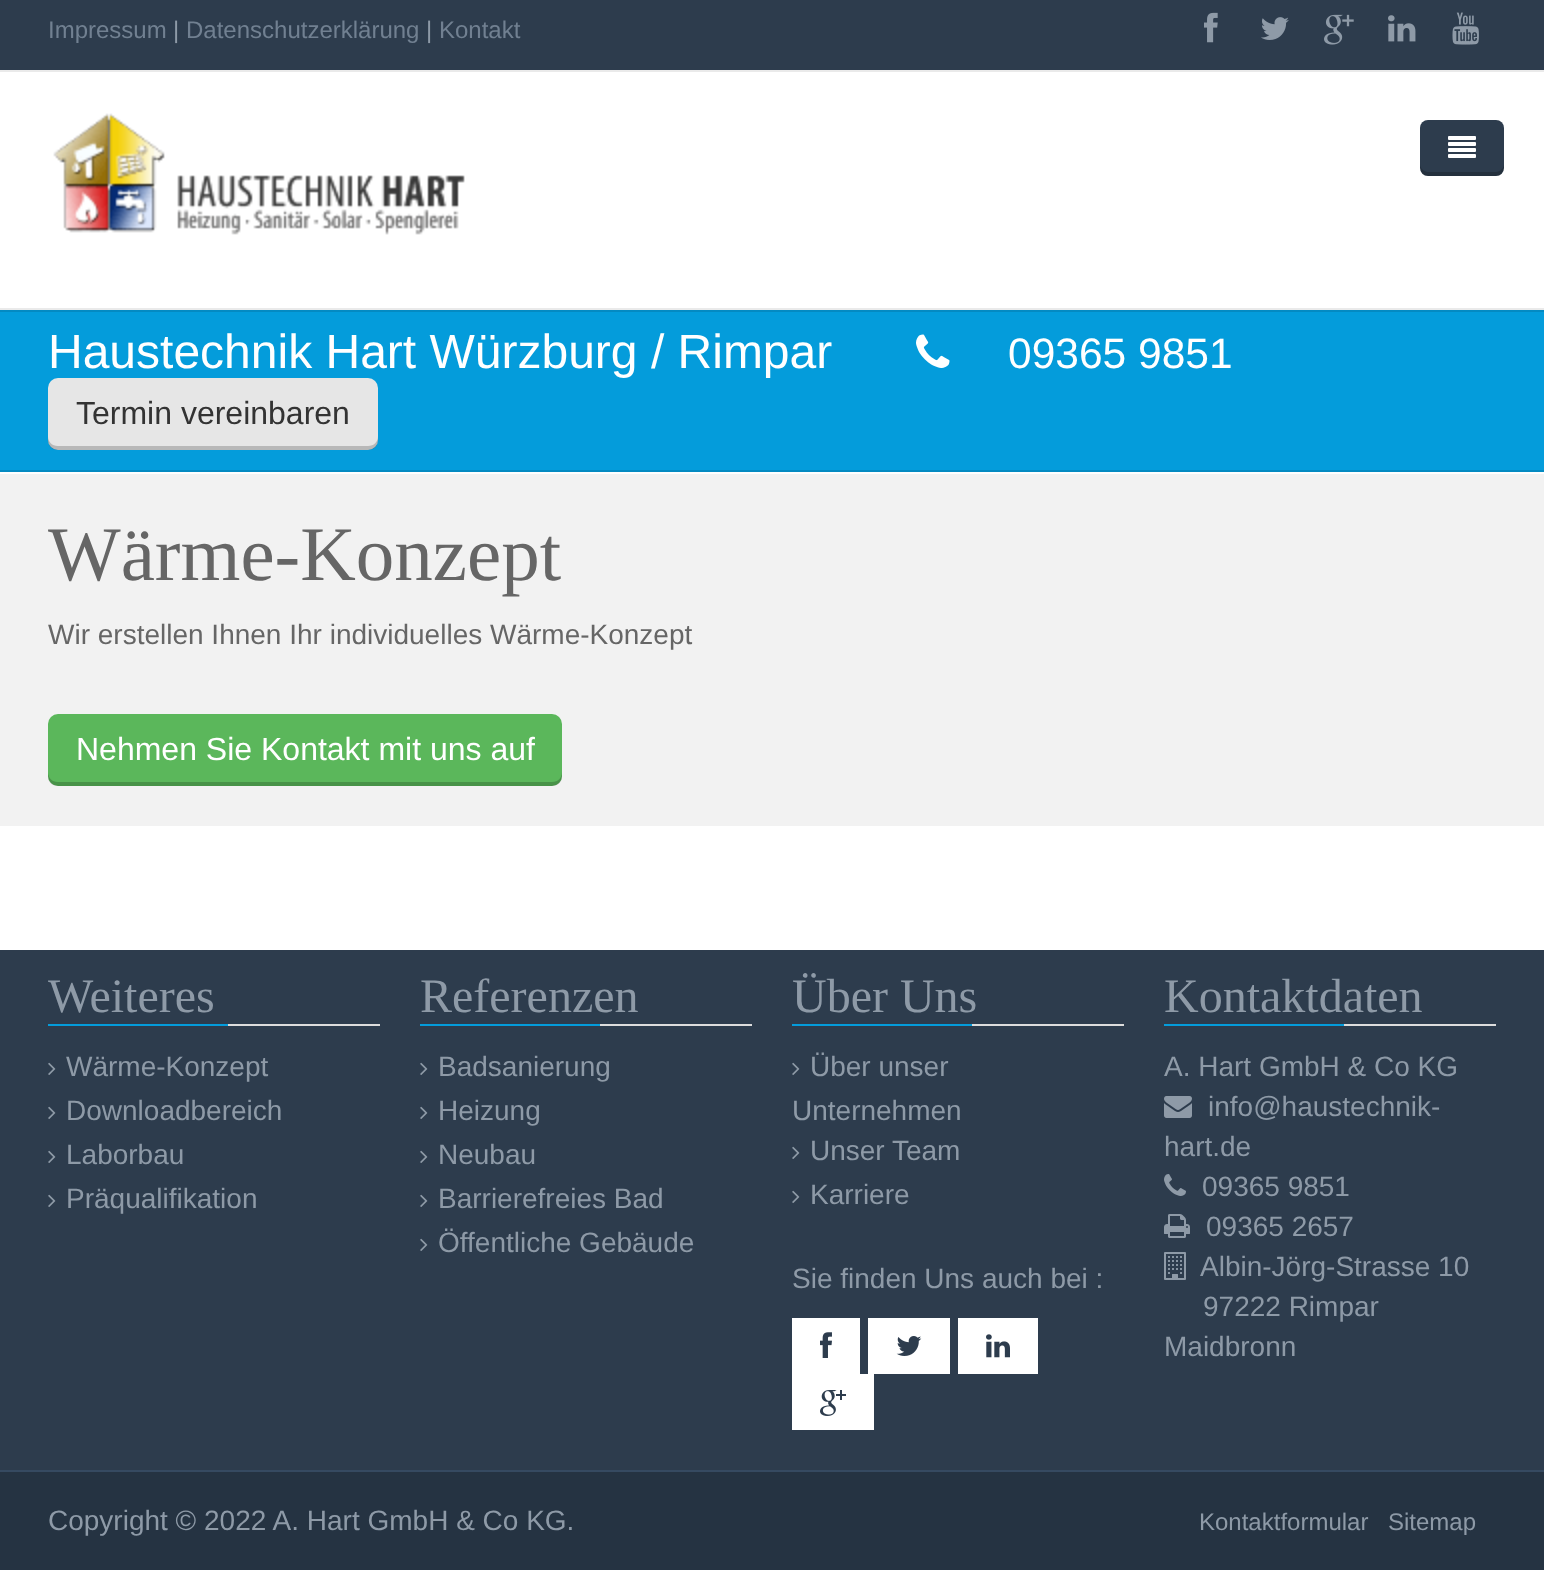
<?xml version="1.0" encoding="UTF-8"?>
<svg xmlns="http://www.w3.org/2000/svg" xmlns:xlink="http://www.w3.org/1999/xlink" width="1544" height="1584">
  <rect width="100%" height="100%" fill="#ffffff" />
  <rect width="1544" height="70" fill="#2d3c4d" />
  <image x="1204" y="12" width="14" height="31" xlink:href="image1.png" />
  <image x="1261" y="17" width="28" height="23" xlink:href="image2.png" />
  <image x="1324" y="14" width="30" height="31" xlink:href="image3.png" />
  <image x="1388" y="15" width="28" height="27" xlink:href="image4.png" />
  <image x="1452" y="12" width="27" height="33" xlink:href="image5.png" />
  <rect y="70" width="1544" height="2" fill="#eaeaea" />
  <rect y="308" width="1544" height="2" fill="#eaeaea" />
  <image x="53" y="113" width="412" height="122" xlink:href="image6.png" />
  <rect x="1420" y="120" width="84" height="56" rx="8" fill="#2d3c4d" />
  <path d="M 1420 164 c 0 14 6 12 19 12 h 46 c 13 0 19 2 19 -12 c 0 4 -4 8 -8 8 h -68 c -4 0 -8 -4 -8 -8 z" fill="#000000" fill-opacity="0.2" />
  <image x="1448" y="136" width="28" height="22" xlink:href="image7.png" />
  <rect y="312" width="1544" height="158" fill="#049cdb" />
  <rect y="310" width="1544" height="2" fill="#048ac2" />
  <rect y="470" width="1544" height="2" fill="#048ac2" />
  <image x="916" y="334" width="34" height="34" xlink:href="image8.png" />
  <rect x="48" y="378" width="330" height="72" rx="10" fill="#e6e6e6" />
  <path d="M 48 436 v 4 c 0 6 4 10 10 10 h 310 c 6 0 10 -4 10 -10 v -4 c 0 6 -4 10 -10 10 h -310 c -6 0 -10 -4 -10 -10 z" fill="#000000" fill-opacity="0.2" />
  <rect y="474" width="1544" height="352" fill="#f2f2f2" />
  <rect x="48" y="714" width="514" height="72" rx="10" fill="#5bb75b" />
  <path d="M 48 772 v 4 c 0 6 4 10 10 10 h 494 c 6 0 10 -4 10 -10 v -4 c 0 6 -4 10 -10 10 h -494 c -6 0 -10 -4 -10 -10 z" fill="#000000" fill-opacity="0.2" />
  <rect y="950" width="1544" height="520" fill="#2d3c4d" />
  <rect x="228" y="1024" width="152" height="2" fill="#dddddd" />
  <rect x="48" y="1024" width="180" height="2" fill="#049cdb" />
  <image x="48" y="1062" width="8" height="13" xlink:href="image9.png" />
  <image x="48" y="1106" width="8" height="13" xlink:href="image9.png" />
  <image x="48" y="1150" width="8" height="13" xlink:href="image9.png" />
  <image x="48" y="1194" width="8" height="13" xlink:href="image9.png" />
  <rect x="600" y="1024" width="152" height="2" fill="#dddddd" />
  <rect x="420" y="1024" width="180" height="2" fill="#049cdb" />
  <image x="420" y="1062" width="8" height="13" xlink:href="image9.png" />
  <image x="420" y="1106" width="8" height="13" xlink:href="image9.png" />
  <image x="420" y="1150" width="8" height="13" xlink:href="image9.png" />
  <image x="420" y="1194" width="8" height="13" xlink:href="image9.png" />
  <image x="420" y="1238" width="8" height="13" xlink:href="image9.png" />
  <rect x="972" y="1024" width="152" height="2" fill="#dddddd" />
  <rect x="792" y="1024" width="180" height="2" fill="#049cdb" />
  <image x="792" y="1062" width="8" height="13" xlink:href="image9.png" />
  <image x="792" y="1146" width="8" height="13" xlink:href="image9.png" />
  <image x="792" y="1190" width="8" height="13" xlink:href="image9.png" />
  <rect x="792" y="1318" width="68" height="56" fill="#ffffff" />
  <image x="820" y="1332" width="12" height="26" xlink:href="image10.png" />
  <rect x="868" y="1318" width="82" height="56" fill="#ffffff" />
  <image x="896" y="1336" width="26" height="20" xlink:href="image11.png" />
  <rect x="958" y="1318" width="80" height="56" fill="#ffffff" />
  <image x="986" y="1334" width="24" height="24" xlink:href="image12.png" />
  <rect x="792" y="1374" width="82" height="56" fill="#ffffff" />
  <image x="820" y="1390" width="26" height="26" xlink:href="image13.png" />
  <rect x="1344" y="1024" width="152" height="2" fill="#dddddd" />
  <rect x="1164" y="1024" width="180" height="2" fill="#049cdb" />
  <image x="1164" y="1096" width="28" height="22" xlink:href="image14.png" />
  <image x="1164" y="1174" width="22" height="22" xlink:href="image15.png" />
  <image x="1164" y="1214" width="26" height="24" xlink:href="image16.png" />
  <image x="1164" y="1252" width="22" height="28" xlink:href="image17.png" />
  <rect y="1472" width="1544" height="98" fill="#253342" />
  <rect y="1470" width="1544" height="2" fill="#364a61" />
  <text x="48" y="38" style="font-family: Liberation Sans; font-size: 24px; fill: #718091">Impressum</text>
  <text x="173" y="38" style="font-family: Liberation Sans; font-size: 24px; fill: #8e9aa7">|</text>
  <text x="186" y="38" style="font-family: Liberation Sans; font-size: 24px; fill: #718091">Datenschutzerklärung</text>
  <text x="426" y="38" style="font-family: Liberation Sans; font-size: 24px; fill: #8e9aa7">|</text>
  <text x="439" y="38" style="font-family: Liberation Sans; font-size: 24px; fill: #718091">Kontakt</text>
  <text x="48" y="368" style="font-family: Liberation Sans; font-size: 48px; fill: #ffffff">Haustechnik Hart Würzburg / Rimpar</text>
  <text x="1008" y="368" style="font-family: Liberation Sans; font-size: 42.5px; fill: #ffffff">09365 9851</text>
  <text x="76" y="424" style="font-family: Liberation Sans; font-size: 32px; fill: #333333">Termin vereinbaren</text>
  <text x="48" y="580" style="font-family: Liberation Serif; font-size: 77px; fill: #666666">Wärme-Konzept</text>
  <text x="48" y="644" style="font-family: Liberation Sans; font-size: 28px; fill: #666666">Wir erstellen Ihnen Ihr individuelles Wärme-Konzept</text>
  <text x="76" y="760" style="font-family: Liberation Sans; font-size: 32px; fill: #ffffff">Nehmen Sie Kontakt mit uns auf</text>
  <text x="48" y="1012" style="font-family: Liberation Serif; font-size: 48px; fill: #8e9aa7">Weiteres</text>
  <text x="66" y="1076" style="font-family: Liberation Sans; font-size: 28px; fill: #8e9aa7">Wärme-Konzept</text>
  <text x="66" y="1120" style="font-family: Liberation Sans; font-size: 28px; fill: #8e9aa7">Downloadbereich</text>
  <text x="66" y="1164" style="font-family: Liberation Sans; font-size: 28px; fill: #8e9aa7">Laborbau</text>
  <text x="66" y="1208" style="font-family: Liberation Sans; font-size: 28px; fill: #8e9aa7">Präqualifikation</text>
  <text x="420" y="1012" style="font-family: Liberation Serif; font-size: 48px; fill: #8e9aa7">Referenzen</text>
  <text x="438" y="1076" style="font-family: Liberation Sans; font-size: 28px; fill: #8e9aa7">Badsanierung</text>
  <text x="438" y="1120" style="font-family: Liberation Sans; font-size: 28px; fill: #8e9aa7">Heizung</text>
  <text x="438" y="1164" style="font-family: Liberation Sans; font-size: 28px; fill: #8e9aa7">Neubau</text>
  <text x="438" y="1208" style="font-family: Liberation Sans; font-size: 28px; fill: #8e9aa7">Barrierefreies Bad</text>
  <text x="438" y="1252" style="font-family: Liberation Sans; font-size: 28px; fill: #8e9aa7">Öffentliche Gebäude</text>
  <text x="792" y="1012" style="font-family: Liberation Serif; font-size: 48px; fill: #8e9aa7">Über Uns</text>
  <text x="810" y="1076" style="font-family: Liberation Sans; font-size: 28px; fill: #8e9aa7">Über unser</text>
  <text x="792" y="1120" style="font-family: Liberation Sans; font-size: 28px; fill: #8e9aa7">Unternehmen</text>
  <text x="810" y="1160" style="font-family: Liberation Sans; font-size: 28px; fill: #8e9aa7">Unser Team</text>
  <text x="810" y="1204" style="font-family: Liberation Sans; font-size: 28px; fill: #8e9aa7">Karriere</text>
  <text x="792" y="1288" style="font-family: Liberation Sans; font-size: 28px; fill: #8e9aa7">Sie finden Uns auch bei :</text>
  <text x="1164" y="1012" style="font-family: Liberation Serif; font-size: 48px; fill: #8e9aa7">Kontaktdaten</text>
  <text x="1164" y="1076" style="font-family: Liberation Sans; font-size: 28px; fill: #8e9aa7">A. Hart GmbH &amp; Co KG</text>
  <text x="1208" y="1116" style="font-family: Liberation Sans; font-size: 28px; fill: #8e9aa7">info@haustechnik-</text>
  <text x="1164" y="1156" style="font-family: Liberation Sans; font-size: 28px; fill: #8e9aa7">hart.de</text>
  <text x="1202" y="1196" style="font-family: Liberation Sans; font-size: 28px; fill: #8e9aa7">09365 9851</text>
  <text x="1206" y="1236" style="font-family: Liberation Sans; font-size: 28px; fill: #8e9aa7">09365 2657</text>
  <text x="1200" y="1276" style="font-family: Liberation Sans; font-size: 28px; fill: #8e9aa7">Albin-Jörg-Strasse 10</text>
  <text x="1203" y="1316" style="font-family: Liberation Sans; font-size: 28px; fill: #8e9aa7">97222 Rimpar</text>
  <text x="1164" y="1356" style="font-family: Liberation Sans; font-size: 28px; fill: #8e9aa7">Maidbronn</text>
  <text x="48" y="1530" style="font-family: Liberation Sans; font-size: 28px; fill: #8e9aa7">Copyright © 2022 A. Hart GmbH &amp; Co KG.</text>
  <text x="1199" y="1530" style="font-family: Liberation Sans; font-size: 24px; fill: #8e9aa7">Kontaktformular</text>
  <text x="1388" y="1530" style="font-family: Liberation Sans; font-size: 24px; fill: #8e9aa7">Sitemap</text>
</svg>
